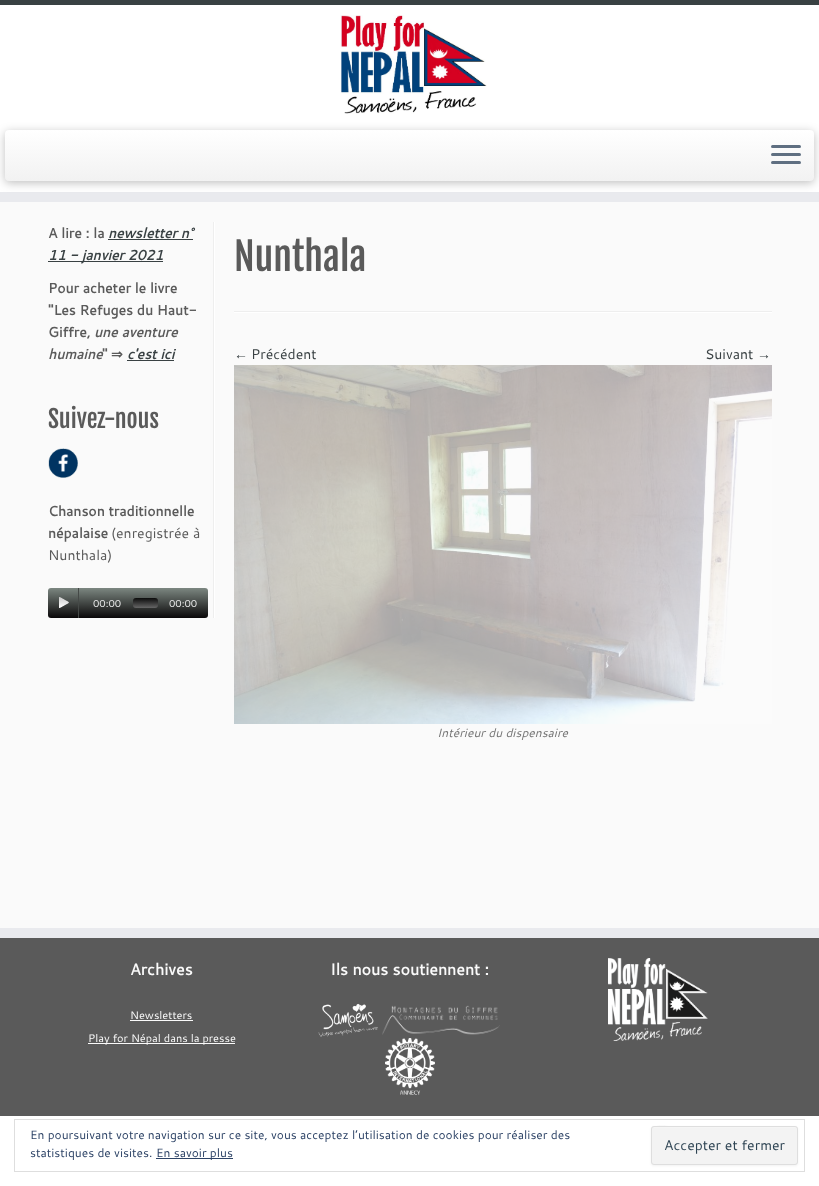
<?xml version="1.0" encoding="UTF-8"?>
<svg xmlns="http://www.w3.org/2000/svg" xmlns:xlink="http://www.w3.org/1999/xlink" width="819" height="1186">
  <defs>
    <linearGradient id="g1" gradientUnits="userSpaceOnUse" x1="410" y1="130" x2="410" y2="181"><stop offset="0" stop-color="#ffffff" /><stop offset="1" stop-color="#f2f2f2" /></linearGradient>
    <linearGradient id="g2" gradientUnits="userSpaceOnUse" x1="128" y1="588" x2="128" y2="618"><stop offset="0" stop-color="#7c8781" /><stop offset="1" stop-color="#0a0809" /></linearGradient>
    <linearGradient id="g3" gradientUnits="userSpaceOnUse" x1="146" y1="598" x2="146" y2="608"><stop offset="0" stop-color="#0b0b0b" /><stop offset="1" stop-color="#666666" /></linearGradient>
  </defs>
  <rect width="100%" height="100%" fill="#fafafa" />
  <rect y="5" width="819" height="187" fill="#ffffff" />
  <rect width="819" height="5" fill="#394143" />
  <rect y="192" width="819" height="10" fill="#e9eaee" />
  <image x="340" y="15" width="147" height="99" xlink:href="image1.png" />
  <rect x="5" y="132" width="809" height="51" rx="4" fill="#000000" fill-opacity="0.25" filter="blur(5px)" />
  <rect x="5" y="130" width="809" height="51" rx="4" fill="url(#g1)" />
  <rect x="771" y="145" width="30" height="3" rx="1.5" fill="#5f6f81" />
  <rect x="771" y="153" width="30" height="3" rx="1.5" fill="#5f6f81" />
  <rect x="771" y="161" width="30" height="3" rx="1.5" fill="#5f6f81" />
  <rect x="213" y="222" width="1" height="396" fill="#eeeeee" />
  <rect x="108" y="239" width="85" height="1" fill="#394143" />
  <rect x="48" y="261" width="115" height="1" fill="#394143" />
  <rect x="127" y="360" width="47" height="1" fill="#394143" />
  <rect x="214" y="222" width="1" height="396" fill="#ffffff" />
  <image x="48" y="448" width="30" height="30" xlink:href="image2.png" />
  <rect x="48" y="588" width="160" height="30" rx="3" fill="url(#g2)" />
  <image x="59" y="597" width="10" height="11" xlink:href="image3.png" />
  <rect x="78" y="588" width="1" height="30" fill="#454947" />
  <rect x="133" y="598" width="25" height="10" rx="3" fill="url(#g3)" />
  <rect x="234" y="311" width="538" height="1" fill="#eeeeee" />
  <rect x="234" y="312" width="538" height="1" fill="#ffffff" />
  <image x="234" y="365" width="538" height="359" xlink:href="image4.png" />
  <rect y="938" width="819" height="178" fill="#5a5a5a" />
  <rect y="928" width="819" height="10" fill="#e9eaee" />
  <rect x="130" y="1020" width="63" height="1" fill="#fafafa" />
  <rect x="88" y="1043" width="147" height="1" fill="#fafafa" />
  <image x="318" y="1003" width="60" height="34" xlink:href="image5.png" />
  <image x="382" y="1005" width="118" height="30" xlink:href="image6.png" />
  <image x="385" y="1038" width="50" height="57" xlink:href="image7.png" />
  <image x="608" y="958" width="100" height="83" xlink:href="image8.png" />
  <rect y="1116" width="819" height="70" fill="#ffffff" />
  <rect x="14.5" y="1119.5" width="790" height="52" fill="none" stroke="#dedede" />
  <rect x="156" y="1158" width="77" height="1" fill="#2e4467" />
  <rect x="651" y="1127" width="147" height="39" rx="3" fill="#000000" fill-opacity="0.05" filter="blur(1px)" />
  <rect x="651" y="1126" width="147" height="39" rx="3" fill="#f3f3f3" />
  <path d="M 654 1128 h 141 c 1 0 2 1 2 2 c 0 -1 0 -2 -1 -3 h -118 c -4 0 -26 -5 -26 3 c 0 -1 1 -2 2 -2 z" fill="#f5f5f5" />
  <rect x="651.5" y="1126.5" width="146" height="38" rx="2.5" fill="none" stroke="#dedede" />
  <text x="48" y="238" style="font-family: Cantarell; font-size: 14px; font-weight: bold; fill: #5a5a5a">A lire : la</text>
  <text x="108" y="238" style="font-family: Cantarell; font-size: 14px; font-weight: bold; font-style: italic; fill: #394143">newsletter n°</text>
  <text x="48" y="260" style="font-family: Cantarell; font-size: 14px; font-weight: bold; font-style: italic; fill: #394143">11 - janvier 2021</text>
  <text x="48" y="293" style="font-family: Cantarell; font-size: 14px; font-weight: bold; fill: #5a5a5a">Pour acheter le livre</text>
  <text x="48" y="315" style="font-family: Cantarell; font-size: 14px; font-weight: bold; fill: #5a5a5a">"Les Refuges du Haut-</text>
  <text x="48" y="337" style="font-family: Cantarell; font-size: 14px; font-weight: bold; fill: #5a5a5a">Giffre,</text>
  <text x="94" y="337" style="font-family: Cantarell; font-size: 14px; font-weight: bold; font-style: italic; fill: #5a5a5a">une aventure</text>
  <text x="48" y="359" style="font-family: Cantarell; font-size: 14px; font-weight: bold; font-style: italic; fill: #5a5a5a">humaine</text>
  <text x="102" y="359" style="font-family: Cantarell; font-size: 14px; font-weight: bold; fill: #5a5a5a">"</text>
  <text x="111" y="359" style="font-family: DejaVu Sans; font-size: 14px; font-weight: bold; fill: #5a5a5a">⇒</text>
  <text x="127" y="359" style="font-family: Cantarell; font-size: 14px; font-weight: bold; font-style: italic; fill: #394143">c'est ici</text>
  <text x="48" y="428" style="font-family: Fjalla One; font-size: 24px; fill: #5a5a5a">Suivez-nous</text>
  <text x="48" y="516" style="font-family: Cantarell; font-size: 14px; font-weight: bold; fill: #5a5a5a">Chanson traditionnelle</text>
  <text x="48" y="538" style="font-family: Cantarell; font-size: 14px; font-weight: bold; fill: #5a5a5a">népalaise</text>
  <text x="111" y="538" style="font-family: Cantarell; font-size: 14px; fill: #5a5a5a">(enregistrée à</text>
  <text x="48" y="560" style="font-family: Cantarell; font-size: 14px; fill: #5a5a5a">Nunthala)</text>
  <text x="93" y="607" style="font-family: Cantarell; font-size: 10px; fill: #eeeeee">00:00</text>
  <text x="169" y="607" style="font-family: Cantarell; font-size: 10px; fill: #eeeeee">00:00</text>
  <text x="234" y="271" style="font-family: Fjalla One; font-size: 38px; fill: #5a5a5a">Nunthala</text>
  <text x="234" y="359" style="font-family: Liberation Serif; font-size: 14px; fill: #394143">←</text>
  <text x="251" y="359" style="font-family: Cantarell; font-size: 14px; fill: #394143">Précédent</text>
  <text x="705" y="359" style="font-family: Cantarell; font-size: 14px; fill: #394143">Suivant</text>
  <text x="757" y="359" style="font-family: Liberation Serif; font-size: 14px; fill: #394143">→</text>
  <text x="437" y="737" style="font-family: Cantarell; font-size: 12px; font-style: italic; fill: #757575">Intérieur du dispensaire</text>
  <text x="130" y="975" style="font-family: Cantarell; font-size: 16px; font-weight: bold; fill: #fafafa">Archives</text>
  <text x="130" y="1019" style="font-family: Cantarell; font-size: 11px; fill: #fafafa">Newsletters</text>
  <text x="88" y="1042" style="font-family: Cantarell; font-size: 11px; fill: #fafafa">Play for Népal dans la presse</text>
  <text x="330" y="975" style="font-family: Cantarell; font-size: 16px; font-weight: bold; fill: #fafafa">Ils nous soutiennent :</text>
  <text x="30" y="1139" style="font-family: Cantarell; font-size: 12px; fill: #2e4467">En poursuivant votre navigation sur ce site, vous acceptez l’utilisation de cookies pour réaliser des</text>
  <text x="30" y="1157" style="font-family: Cantarell; font-size: 12px; fill: #2e4467">statistiques de visites.</text>
  <text x="156" y="1157" style="font-family: Cantarell; font-size: 12px; fill: #2e4467">En savoir plus</text>
  <text x="664" y="1150" style="font-family: Cantarell; font-size: 14px; fill: #2e4453">Accepter et fermer</text>
</svg>
